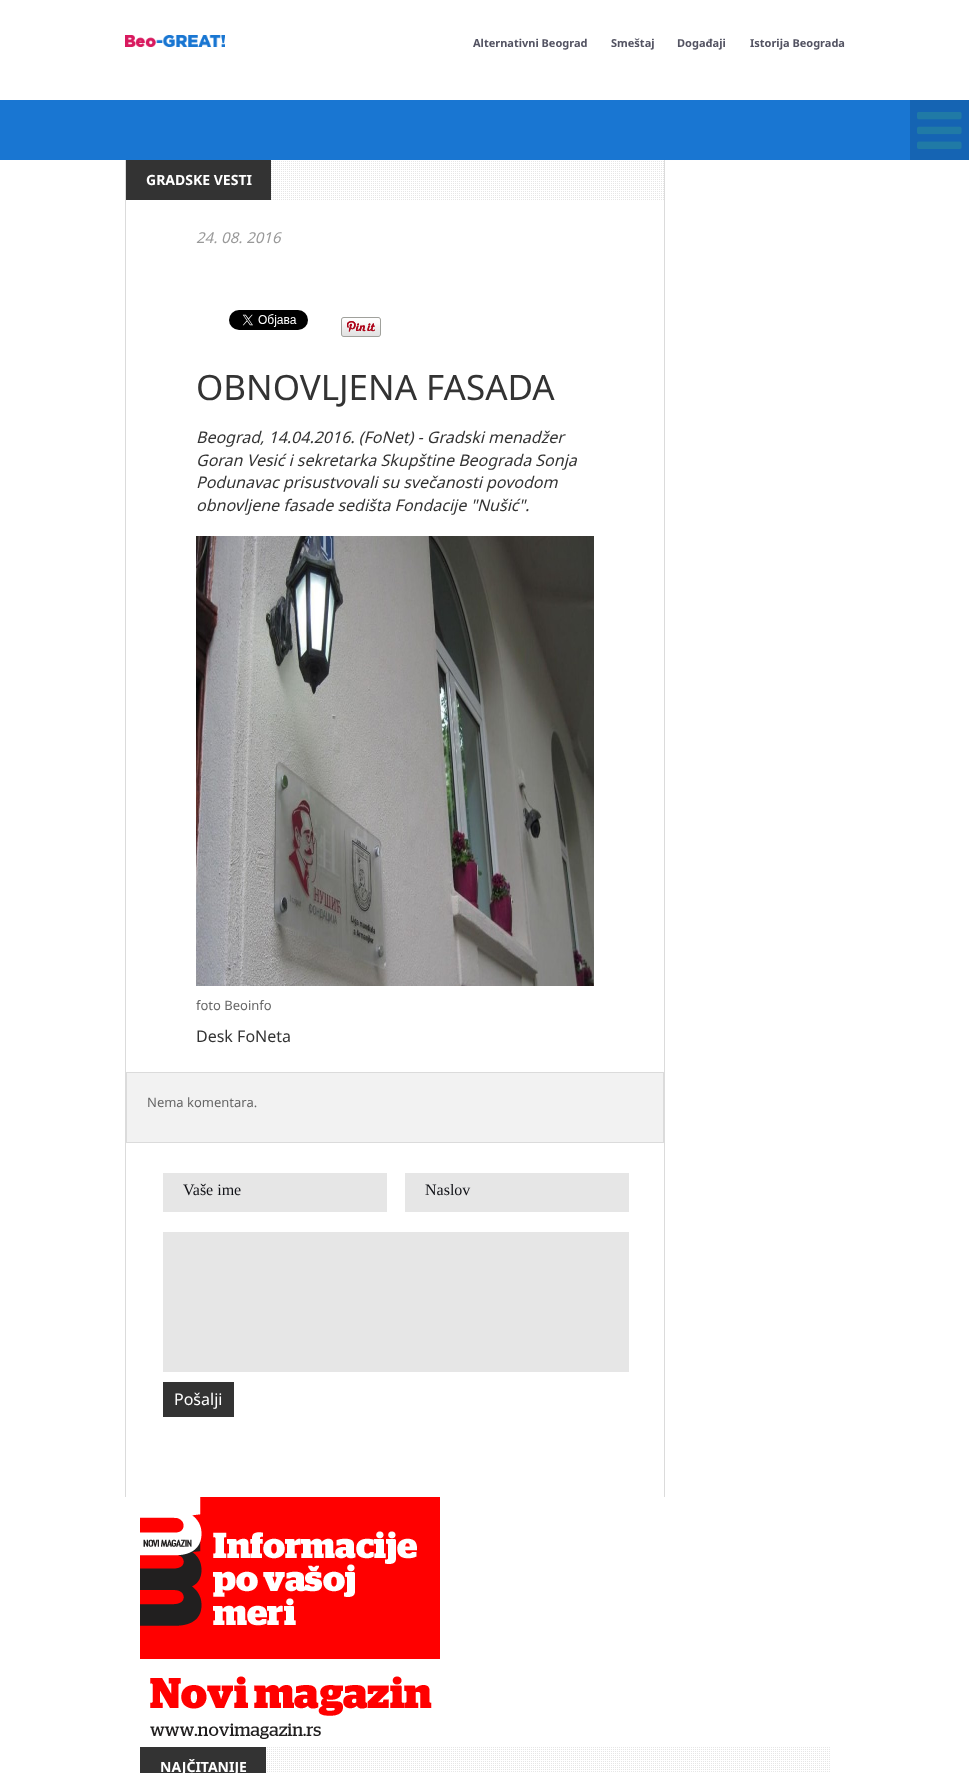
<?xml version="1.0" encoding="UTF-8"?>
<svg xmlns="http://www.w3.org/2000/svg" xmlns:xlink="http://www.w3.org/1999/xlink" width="969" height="1773">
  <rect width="100%" height="100%" fill="#ffffff" />
  <image x="125" y="35" width="100" height="12" xlink:href="image1.png" />
  <rect y="100" width="910" height="60" fill="#1976d2" />
  <rect x="910" y="100" width="59" height="60" fill="#1564b3" />
  <image x="917" y="112" width="45" height="37" xlink:href="image2.png" />
  <rect x="664" y="160" width="1" height="1337" fill="#dbdbdb" />
  <rect x="125" y="160" width="1" height="1337" fill="#dbdbdb" />
  <image x="271" y="161" width="393" height="39" xlink:href="image3.png" />
  <rect x="126" y="160" width="145" height="40" fill="#333333" />
  <image x="229" y="310" width="79" height="20" xlink:href="image4.png" />
  <image x="341" y="317" width="40" height="20" xlink:href="image5.png" />
  <image x="196" y="536" width="398" height="450" xlink:href="image6.png" />
  <rect x="126.5" y="1072.5" width="537" height="70" fill="#f2f2f2" stroke="#dbdbdb" />
  <rect x="163" y="1173" width="224" height="39" fill="#e6e6e6" />
  <rect x="405" y="1173" width="224" height="39" fill="#e6e6e6" />
  <rect x="163" y="1232" width="466" height="140" fill="#e6e6e6" />
  <rect x="163" y="1382" width="71" height="35" fill="#333333" />
  <image x="140" y="1497" width="300" height="242" xlink:href="image7.png" />
  <image x="266" y="1747" width="564" height="25" xlink:href="image8.png" />
  <rect x="140" y="1747" width="126" height="26" fill="#333333" />
  <text x="473" y="47" style="font-family: Noto Sans; font-size: 11px; font-weight: bold; fill: #535362">Alternativni Beograd</text>
  <text x="611" y="47" style="font-family: Noto Sans; font-size: 11px; font-weight: bold; fill: #535362">Smeštaj</text>
  <text x="677" y="47" style="font-family: Noto Sans; font-size: 11px; font-weight: bold; fill: #535362">Događaji</text>
  <text x="750" y="47" style="font-family: Noto Sans; font-size: 11px; font-weight: bold; fill: #535362">Istorija Beograda</text>
  <text x="146" y="185" style="font-family: Noto Sans; font-size: 14px; font-weight: bold; fill: #ffffff">GRADSKE VESTI</text>
  <text x="196" y="243" style="font-family: Noto Sans; font-size: 15px; font-style: italic; fill: #999999">24. 08. 2016</text>
  <text x="196" y="400" style="font-family: Noto Sans; font-size: 35px; fill: #333333">OBNOVLJENA FASADA</text>
  <text x="196" y="443" style="font-family: Noto Sans; font-size: 16px; font-style: italic; fill: #333333">Beograd, 14.04.2016. (FoNet) - Gradski menadžer</text>
  <text x="196" y="466" style="font-family: Noto Sans; font-size: 16px; font-style: italic; fill: #333333">Goran Vesić i sekretarka Skupštine Beograda Sonja</text>
  <text x="196" y="488" style="font-family: Noto Sans; font-size: 16px; font-style: italic; fill: #333333">Podunavac prisustvovali su svečanosti povodom</text>
  <text x="196" y="511" style="font-family: Noto Sans; font-size: 16px; font-style: italic; fill: #333333">obnovljene fasade sedišta Fondacije "Nušić".</text>
  <text x="196" y="1010" style="font-family: Noto Sans; font-size: 13px; fill: #666666">foto Beoinfo</text>
  <text x="196" y="1042" style="font-family: Noto Sans; font-size: 16px; fill: #333333">Desk FoNeta</text>
  <text x="147" y="1107" style="font-family: Noto Sans; font-size: 13px; fill: #666666">Nema komentara.</text>
  <text x="183" y="1195" style="font-family: Liberation Serif; font-size: 16px; fill: #121318">Vaše ime</text>
  <text x="425" y="1195" style="font-family: Liberation Serif; font-size: 16px; fill: #121318">Naslov</text>
  <text x="174" y="1405" style="font-family: Noto Sans; font-size: 16px; fill: #ffffff">Pošalji</text>
  <text x="160" y="1772" style="font-family: Noto Sans; font-size: 14px; font-weight: bold; fill: #ffffff">NAJČITANIJE</text>
</svg>
